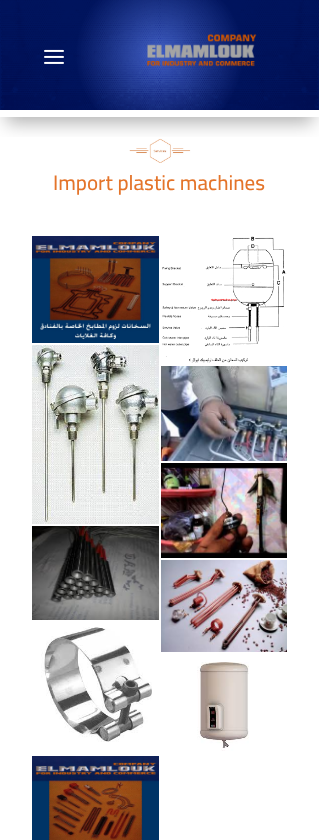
<?xml version="1.0" encoding="UTF-8"?>
<svg xmlns="http://www.w3.org/2000/svg" xmlns:xlink="http://www.w3.org/1999/xlink" width="319" height="840">
  <defs>
    <clipPath id="clip1"><rect x="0" y="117" width="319" height="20" /></clipPath>
  </defs>
  <rect width="100%" height="100%" fill="#ffffff" />
  <image x="129" y="138" width="62" height="25" xlink:href="image4.png" />
  <g clip-path="url(#clip1)">
    <rect x="6" y="18" width="307" height="105" fill="#000000" fill-opacity="0.3" filter="blur(9px)" />
  </g>
  <image x="0" y="0" width="319" height="110" xlink:href="image1.png" />
  <image x="44" y="49" width="20" height="15" xlink:href="image2.png" />
  <image x="147" y="34" width="110" height="33" xlink:href="image3.png" />
  <image x="32" y="236" width="127" height="107" xlink:href="image5.png" />
  <image x="162" y="236" width="125" height="127" xlink:href="image6.png" />
  <image x="32" y="345" width="127" height="179" xlink:href="image7.png" />
  <image x="161" y="366" width="126" height="95" xlink:href="image8.png" />
  <image x="161" y="463" width="126" height="95" xlink:href="image9.png" />
  <image x="32" y="526" width="127" height="94" xlink:href="image10.png" />
  <image x="161" y="560" width="126" height="92" xlink:href="image11.png" />
  <image x="41" y="627" width="111" height="115" xlink:href="image12.png" />
  <image x="197" y="662" width="52" height="89" xlink:href="image13.png" />
  <image x="32" y="756" width="127" height="84" xlink:href="image14.png" />
  <text x="53" y="190" style="font-family: Cairo; font-size: 21px; font-weight: 500; fill: #e4742a">Import plastic machines</text>
</svg>
